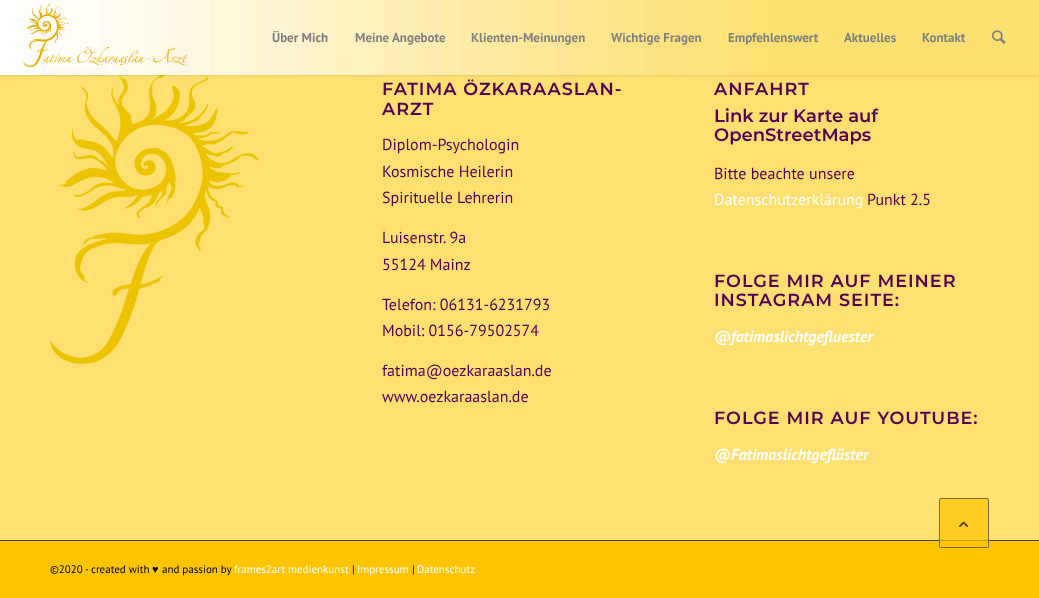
<?xml version="1.0" encoding="UTF-8"?>
<svg xmlns="http://www.w3.org/2000/svg" xmlns:xlink="http://www.w3.org/1999/xlink" width="1039" height="598">
  <rect width="100%" height="100%" fill="#ffe070" />
  <image x="50" y="75" width="209" height="289" xlink:href="image4.png" />
  <rect x="-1" y="-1" width="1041" height="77" fill="#000000" fill-opacity="0.1" filter="blur(1px)" />
  <image x="0" y="0" width="1039" height="75" xlink:href="image1.png" />
  <image x="23" y="2" width="165" height="72" xlink:href="image2.png" />
  <image x="992" y="30" width="14" height="14" xlink:href="image3.png" />
  <rect y="541" width="1039" height="57" fill="#ffc400" />
  <rect y="540" width="1039" height="1" fill="#444444" />
  <rect x="939" y="498" width="50" height="50" rx="2" fill="#ffc400" fill-opacity="0.7" />
  <rect x="939.5" y="498.5" width="49" height="49" rx="1.5" fill="none" stroke="#444444" stroke-opacity="0.7" />
  <image x="959" y="521" width="10" height="7" xlink:href="image5.png" />
  <text x="272" y="42" style="font-family: PT Sans; font-size: 13px; font-weight: bold; fill: #808080">Über Mich</text>
  <text x="355" y="42" style="font-family: PT Sans; font-size: 13px; font-weight: bold; fill: #808080">Meine Angebote</text>
  <text x="471" y="42" style="font-family: PT Sans; font-size: 13px; font-weight: bold; fill: #808080">Klienten-Meinungen</text>
  <text x="611" y="42" style="font-family: PT Sans; font-size: 13px; font-weight: bold; fill: #808080">Wichtige Fragen</text>
  <text x="728" y="42" style="font-family: PT Sans; font-size: 13px; font-weight: bold; fill: #808080">Empfehlenswert</text>
  <text x="844" y="42" style="font-family: PT Sans; font-size: 13px; font-weight: bold; fill: #808080">Aktuelles</text>
  <text x="922" y="42" style="font-family: PT Sans; font-size: 13px; font-weight: bold; fill: #808080">Kontakt</text>
  <text x="382" y="95" style="font-family: Montserrat; font-size: 17.6px; font-weight: 600; letter-spacing: 1px; fill: #540054">FATIMA ÖZKARAASLAN-</text>
  <text x="382" y="115" style="font-family: Montserrat; font-size: 17.6px; font-weight: 600; letter-spacing: 1px; fill: #540054">ARZT</text>
  <text x="382" y="150" style="font-family: PT Sans; font-size: 16px; fill: #540054">Diplom-Psychologin</text>
  <text x="382" y="177" style="font-family: PT Sans; font-size: 16px; fill: #540054">Kosmische Heilerin</text>
  <text x="382" y="203" style="font-family: PT Sans; font-size: 16px; fill: #540054">Spirituelle Lehrerin</text>
  <text x="382" y="243" style="font-family: PT Sans; font-size: 16px; fill: #540054">Luisenstr. 9a</text>
  <text x="382" y="270" style="font-family: PT Sans; font-size: 16px; fill: #540054">55124 Mainz</text>
  <text x="382" y="310" style="font-family: PT Sans; font-size: 16px; fill: #540054">Telefon: 06131-6231793</text>
  <text x="382" y="336" style="font-family: PT Sans; font-size: 16px; fill: #540054">Mobil: 0156-79502574</text>
  <text x="382" y="376" style="font-family: PT Sans; font-size: 16px; fill: #540054">fatima@oezkaraaslan.de</text>
  <text x="382" y="402" style="font-family: PT Sans; font-size: 16px; fill: #540054">www.oezkaraaslan.de</text>
  <text x="714" y="95" style="font-family: Montserrat; font-size: 17.6px; font-weight: 600; letter-spacing: 1px; fill: #540054">ANFAHRT</text>
  <text x="714" y="122" style="font-family: Montserrat; font-size: 18px; font-weight: 600; fill: #540054">Link zur Karte auf</text>
  <text x="714" y="141" style="font-family: Montserrat; font-size: 18px; font-weight: 600; fill: #540054">OpenStreetMaps</text>
  <text x="714" y="179" style="font-family: PT Sans; font-size: 16px; fill: #540054">Bitte beachte unsere</text>
  <text x="714" y="205" style="font-family: PT Sans; font-size: 16px; fill: #ffffff">Datenschutzerklärung</text>
  <text x="867" y="205" style="font-family: PT Sans; font-size: 16px; fill: #540054">Punkt 2.5</text>
  <text x="714" y="287" style="font-family: Montserrat; font-size: 17.6px; font-weight: 600; letter-spacing: 1px; fill: #540054">FOLGE MIR AUF MEINER</text>
  <text x="714" y="306" style="font-family: Montserrat; font-size: 17.6px; font-weight: 600; letter-spacing: 1px; fill: #540054">INSTAGRAM SEITE:</text>
  <text x="714" y="342" style="font-family: PT Sans; font-size: 16px; font-weight: bold; font-style: italic; fill: #ffffff">@fatimaslichtgefluester</text>
  <text x="714" y="424" style="font-family: Montserrat; font-size: 17.6px; font-weight: 600; letter-spacing: 1px; fill: #540054">FOLGE MIR AUF YOUTUBE:</text>
  <text x="714" y="460" style="font-family: PT Sans; font-size: 16px; font-weight: bold; font-style: italic; fill: #ffffff">@Fatimaslichtgeflüster</text>
  <text x="50" y="573" style="font-family: PT Sans; font-size: 11px; fill: #000000">©2020 - created with</text>
  <text x="152" y="573" style="font-family: Liberation Sans; font-size: 11px; fill: #000000">♥</text>
  <text x="162" y="573" style="font-family: PT Sans; font-size: 11px; fill: #000000">and passion by</text>
  <text x="234" y="573" style="font-family: PT Sans; font-size: 11px; fill: #ffffff">frames2art medienkunst</text>
  <text x="352" y="573" style="font-family: PT Sans; font-size: 11px; fill: #000000">|</text>
  <text x="357" y="573" style="font-family: PT Sans; font-size: 11px; fill: #ffffff">Impressum</text>
  <text x="412" y="573" style="font-family: PT Sans; font-size: 11px; fill: #000000">|</text>
  <text x="417" y="573" style="font-family: PT Sans; font-size: 11px; fill: #ffffff">Datenschutz</text>
</svg>
